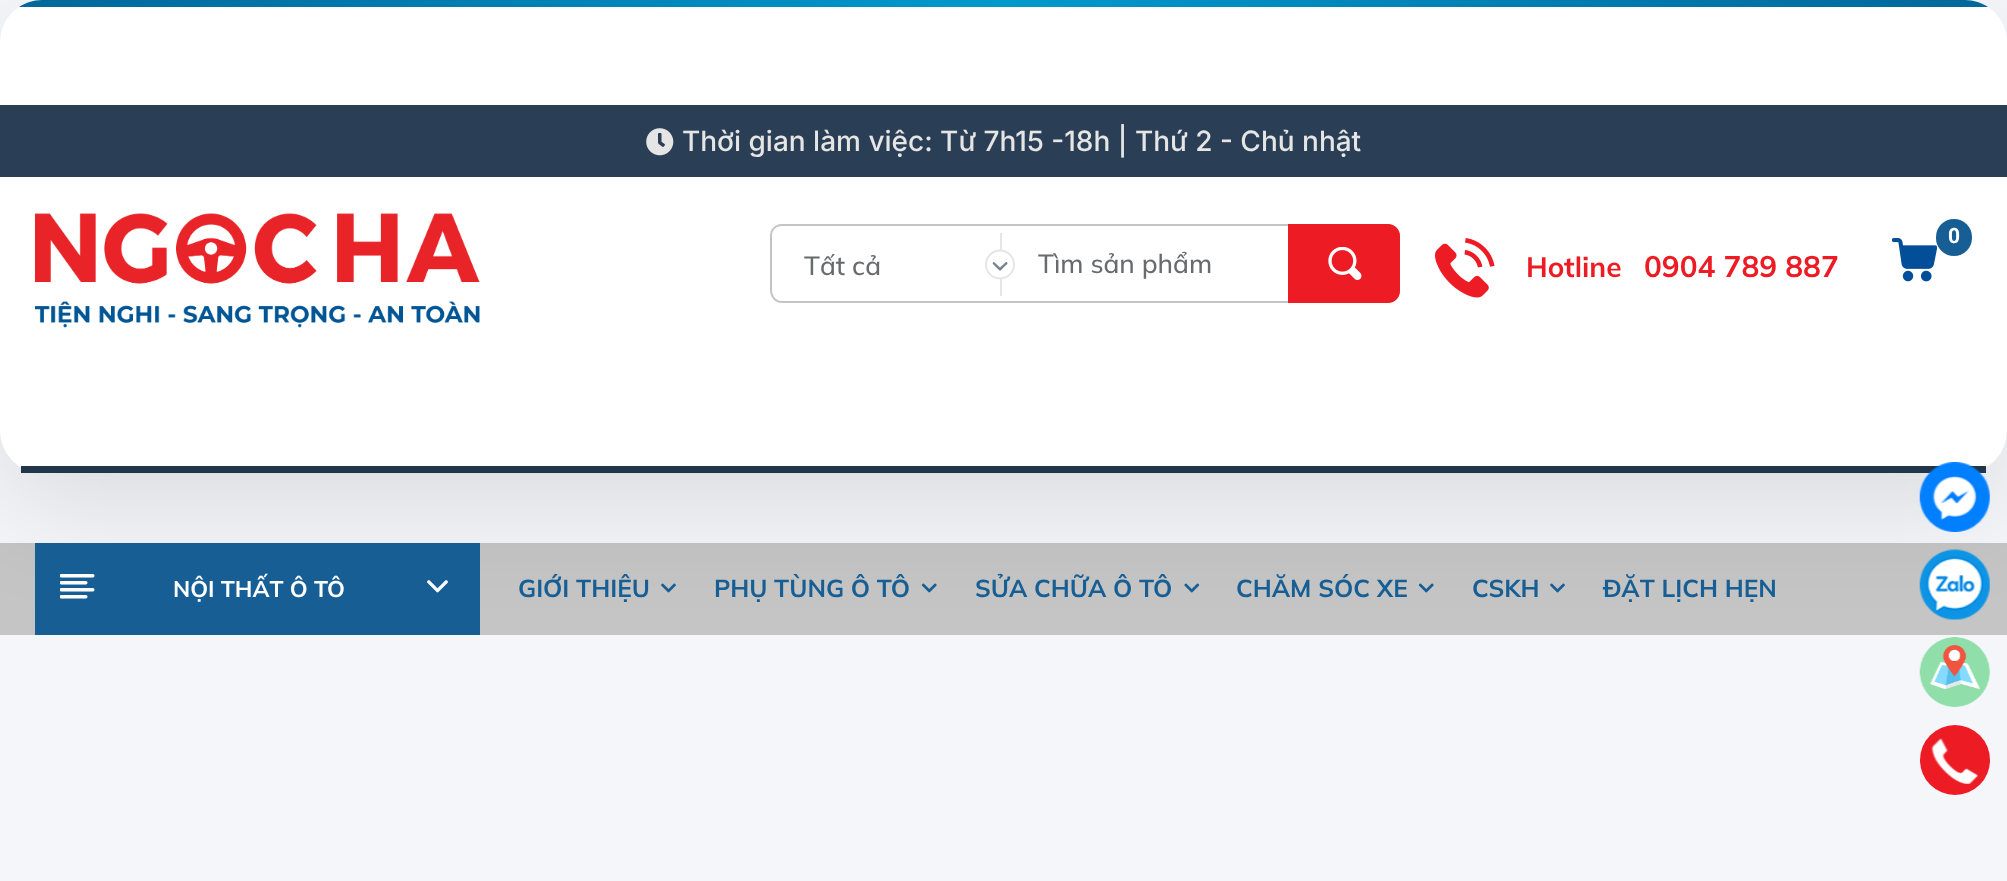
<?xml version="1.0" encoding="UTF-8"?>
<svg xmlns="http://www.w3.org/2000/svg" xmlns:xlink="http://www.w3.org/1999/xlink" width="2007" height="881">
  <defs>
    <linearGradient id="g1" gradientUnits="userSpaceOnUse" x1="0" y1="3.5" x2="2007" y2="3.5"><stop offset="0" stop-color="#006699" /><stop offset="0.5" stop-color="#0099cc" /><stop offset="1" stop-color="#006699" /></linearGradient>
  </defs>
  <rect width="100%" height="100%" fill="#f5f6fa" />
  <rect y="543" width="2007" height="92" fill="#c5c5c5" />
  <rect y="35" width="2007" height="473" rx="42" fill="#000000" fill-opacity="0.1" filter="blur(52.5px)" />
  <rect width="2007" height="473" rx="42" fill="#ffffff" />
  <rect x="21" y="466" width="1965" height="7" fill="#22364a" />
  <path d="M 42 0 h 1923 c 9 0 17 3 23 7 h -1969 c 6 -4 14 -7 23 -7 z" fill="url(#g1)" />
  <rect y="105" width="2007" height="72" fill="#2a3e55" />
  <image x="646" y="128" width="28" height="28" xlink:href="image1.png" />
  <image x="35" y="213" width="445" height="115" xlink:href="image2.png" />
  <image x="1892" y="238" width="45" height="44" xlink:href="image3.png" />
  <rect x="1936" y="219" width="36" height="37" rx="18" fill="#175e94" />
  <rect x="771" y="225" width="628" height="77" rx="11" fill="none" stroke="#c4c4c4" stroke-width="2" />
  <rect x="770" y="224" width="245" height="79" fill="#ffffff" />
  <path d="M 782 224 h 233 v 79 h -233 c -7 0 -12 -6 -12 -13 v -54 c 0 -7 5 -12 12 -12 z m 0 2 h 233 v 75 h -233 c -6 0 -10 -5 -10 -11 v -54 c 0 -6 4 -10 10 -10 z" fill="#c4c4c4" fill-rule="evenodd" />
  <rect x="1000" y="233" width="2" height="63" fill="#e6e6e6" />
  <circle cx="1000" cy="264.5" r="14" fill="#ffffff" stroke="#e5e5e5" stroke-width="1.9" />
  <path d="M 999.5 270.5 l -5.5 -5.5 c -0.5 -0.5 -2 -1.5 -1 -2.5 c 0.5 -0.5 0.5 -0.5 1 -0.5 l 6 5.5 l 6 -5.5 h 0.5 c 2.5 1.5 -0.5 3 -1.5 4 l -3 3 c -0.5 0.5 -1.5 2 -2.5 1.5 z" fill="#75808c" />
  <path d="M 1288 224 h 100 c 6.5 0 12 5.5 12 12 v 55 c 0 6.5 -5.5 12 -12 12 h -100 z" fill="#ed1c24" />
  <image x="1328" y="247" width="34" height="33" xlink:href="image4.png" />
  <image x="1435" y="238" width="60" height="60" xlink:href="image5.png" />
  <rect x="35" y="543" width="445" height="92" fill="#175e94" />
  <image x="60" y="574" width="35" height="25" xlink:href="image6.png" />
  <image x="427" y="580" width="21" height="13" xlink:href="image7.png" />
  <image x="661" y="583" width="15" height="10" xlink:href="image8.png" />
  <image x="921" y="583" width="16" height="10" xlink:href="image9.png" />
  <image x="1184" y="583" width="16" height="10" xlink:href="image10.png" />
  <image x="1418" y="583" width="16" height="10" xlink:href="image9.png" />
  <image x="1550" y="583" width="15" height="10" xlink:href="image8.png" />
  <image x="1919" y="462" width="71" height="70" xlink:href="image11.png" />
  <image x="1919" y="549" width="71" height="71" xlink:href="image12.png" />
  <image x="1919" y="637" width="71" height="70" xlink:href="image13.png" />
  <circle cx="1955" cy="760" r="35" fill="#ed1c24" />
  <image x="1931" y="738" width="47" height="46" xlink:href="image14.png" />
  <text x="682" y="151" style="font-family: Inter; font-size: 28px; font-weight: 500; fill: #e5e5e5">Thời gian làm việc: Từ 7h15 -18h | Thứ 2 - Chủ nhật</text>
  <text x="1948" y="243" style="font-family: Roboto; font-size: 21px; font-weight: bold; fill: #ffffff">0</text>
  <text x="804" y="275" style="font-family: Mulish; font-size: 26.25px; font-weight: 500; fill: #686b6d">Tất cả</text>
  <text x="1038" y="273" style="font-family: Mulish; font-size: 26.25px; font-weight: 500; fill: #686b6d">Tìm sản phẩm</text>
  <text x="1526" y="277" style="font-family: Mulish; font-size: 28px; font-weight: bold; fill: #ed1c24">Hotline</text>
  <text x="1644" y="277" style="font-family: Mulish; font-size: 29.75px; font-weight: bold; fill: #ed1c24">0904 789 887</text>
  <text x="173" y="597" style="font-family: Mulish; font-size: 22.75px; font-weight: bold; fill: #ffffff">NỘI THẤT Ô TÔ</text>
  <text x="518" y="597" style="font-family: Mulish; font-size: 24.5px; font-weight: bold; fill: #175e94">GIỚI THIỆU</text>
  <text x="714" y="597" style="font-family: Mulish; font-size: 24.5px; font-weight: bold; fill: #175e94">PHỤ TÙNG Ô TÔ</text>
  <text x="975" y="597" style="font-family: Mulish; font-size: 24.5px; font-weight: bold; fill: #175e94">SỬA CHỮA Ô TÔ</text>
  <text x="1236" y="597" style="font-family: Mulish; font-size: 24.5px; font-weight: bold; fill: #175e94">CHĂM SÓC XE</text>
  <text x="1472" y="597" style="font-family: Mulish; font-size: 24.5px; font-weight: bold; fill: #175e94">CSKH</text>
  <text x="1603" y="597" style="font-family: Mulish; font-size: 24.5px; font-weight: bold; fill: #175e94">ĐẶT LỊCH HẸN</text>
</svg>
